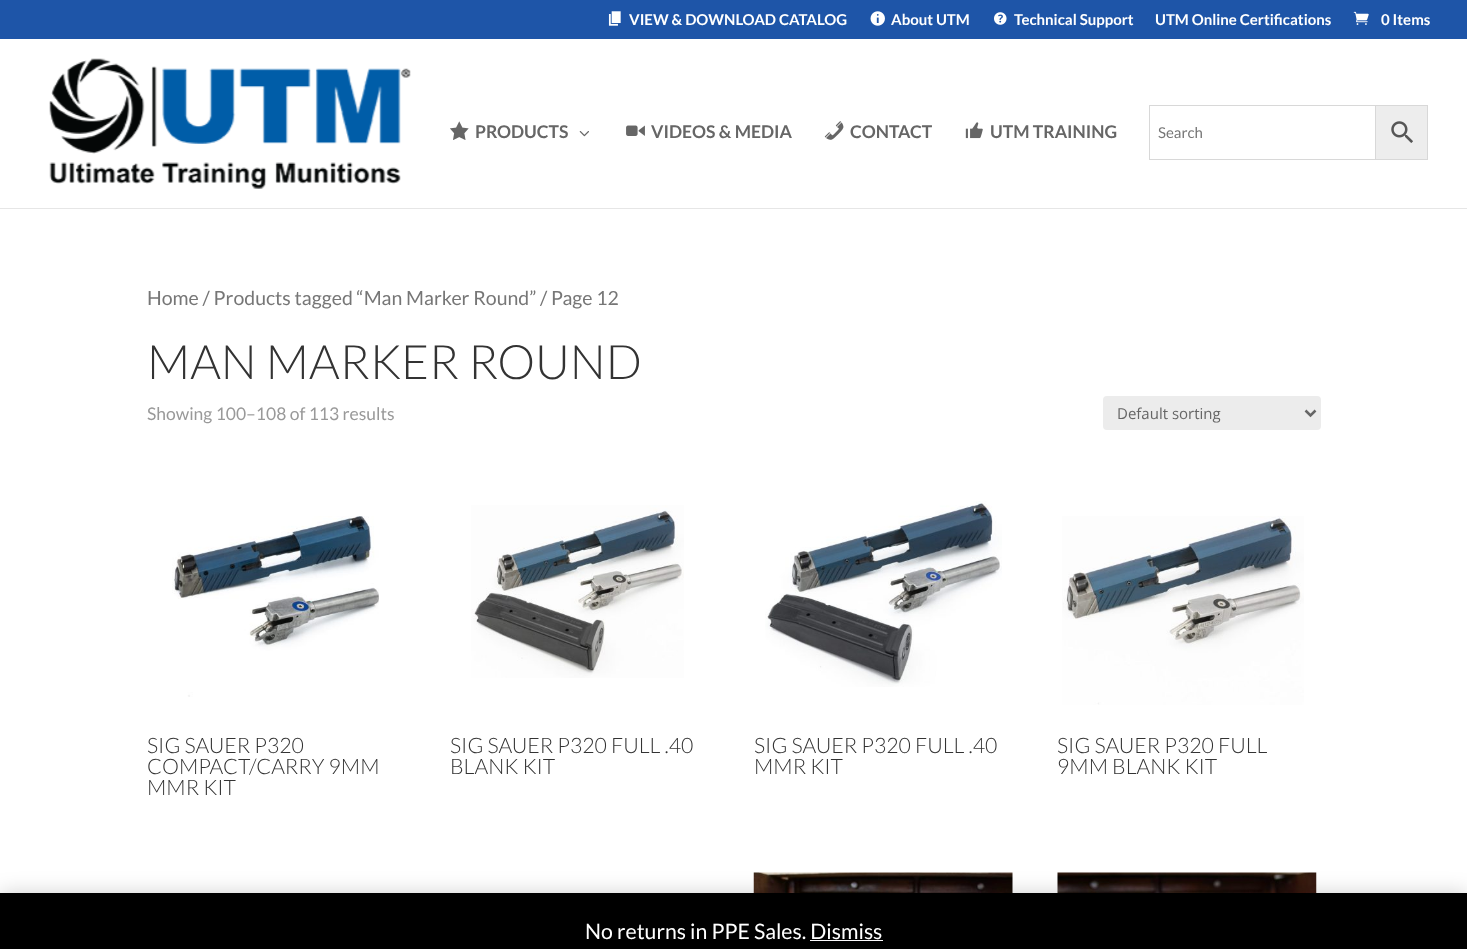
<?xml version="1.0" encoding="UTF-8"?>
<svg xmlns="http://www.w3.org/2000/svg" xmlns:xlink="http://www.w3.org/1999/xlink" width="1467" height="949">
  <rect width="100%" height="100%" fill="#ffffff" />
  <rect width="1467" height="39" fill="#1e55a8" />
  <image x="608" y="11" width="13" height="15" xlink:href="image1.png" />
  <image x="870" y="11" width="15" height="15" xlink:href="image2.png" />
  <image x="994" y="12" width="13" height="13" xlink:href="image3.png" />
  <image x="1353" y="11" width="16" height="14" xlink:href="image4.png" />
  <path d="M 0 208 v 1 h 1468 v -169 v 168 z" fill="#e6e6e6" />
  <image x="49" y="58" width="362" height="131" xlink:href="image5.png" />
  <image x="450" y="121" width="19" height="19" xlink:href="image6.png" />
  <image x="579" y="131" width="10" height="6" xlink:href="image7.png" />
  <image x="626" y="125" width="19" height="11" xlink:href="image8.png" />
  <image x="824" y="121" width="20" height="19" xlink:href="image9.png" />
  <image x="965" y="122" width="18" height="17" xlink:href="image10.png" />
  <rect x="1375.5" y="105.5" width="52" height="54" fill="#ededed" stroke="#d8d8d8" />
  <rect x="1149.5" y="105.5" width="226" height="54" fill="none" stroke="#d8d8d8" />
  <image x="1391" y="121" width="22" height="22" xlink:href="image11.png" />
  <rect x="1103" y="396" width="218" height="34" rx="4" fill="#ececec" />
  <path d="M 1305.5 410.5 l 5 5 l 5 -5" fill="none" stroke="#666666" stroke-width="2.5" />
  <image x="172" y="516" width="207" height="181" xlink:href="image12.png" />
  <image x="471" y="505" width="213" height="173" xlink:href="image13.png" />
  <image x="765" y="501" width="237" height="186" xlink:href="image14.png" />
  <image x="1062" y="516" width="242" height="189" xlink:href="image15.png" />
  <image x="753" y="872" width="260" height="21" xlink:href="image16.png" />
  <image x="1057" y="872" width="260" height="21" xlink:href="image17.png" />
  <rect y="894" width="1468" height="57" fill="#000000" fill-opacity="0.2" filter="blur(10.5px)" />
  <rect y="893" width="1467" height="56" fill="#000000" />
  <rect x="810" y="940" width="73" height="1" fill="#fcfbfe" />
  <text x="629" y="25" style="font-family: Lato; font-size: 15px; font-weight: bold; fill: #ffffff">VIEW &amp; DOWNLOAD CATALOG</text>
  <text x="891" y="25" style="font-family: Lato; font-size: 15px; font-weight: bold; fill: #ffffff">About UTM</text>
  <text x="1014" y="25" style="font-family: Lato; font-size: 15px; font-weight: bold; fill: #ffffff">Technical Support</text>
  <text x="1155" y="25" style="font-family: Lato; font-size: 15px; font-weight: bold; fill: #ffffff">UTM Online Certifications</text>
  <text x="1381" y="25" style="font-family: Lato; font-size: 15px; font-weight: bold; fill: #ffffff">0 Items</text>
  <text x="475" y="138" style="font-family: Lato; font-size: 17.5px; font-weight: bold; fill: #666666">PRODUCTS</text>
  <text x="651" y="138" style="font-family: Lato; font-size: 17.5px; font-weight: bold; fill: #666666">VIDEOS &amp; MEDIA</text>
  <text x="850" y="138" style="font-family: Lato; font-size: 17.5px; font-weight: bold; fill: #666666">CONTACT</text>
  <text x="990" y="138" style="font-family: Lato; font-size: 17.5px; font-weight: bold; fill: #666666">UTM TRAINING</text>
  <text x="1158" y="138" style="font-family: Lato; font-size: 15px; fill: #767676">Search</text>
  <text x="147" y="305" style="font-family: Lato; font-size: 19.5px; fill: #767676">Home / Products tagged “Man Marker Round”</text>
  <text x="540" y="305" style="font-family: Lato; font-size: 19.5px; fill: #767676">/ Page 12</text>
  <text x="147" y="379" style="font-family: Lato; font-size: 47.5px; font-weight: 300; fill: #333333">MAN MARKER ROUND</text>
  <text x="147" y="420" style="font-family: Lato; font-size: 17.5px; fill: #999999">Showing 100–108 of 113 results</text>
  <text x="1117" y="419" style="font-family: Open Sans; font-size: 15px; fill: #666666">Default sorting</text>
  <text x="147" y="753" style="font-family: Lato; font-size: 21.25px; font-weight: 300; fill: #333333">SIG SAUER P320</text>
  <text x="147" y="774" style="font-family: Lato; font-size: 21.25px; font-weight: 300; fill: #333333">COMPACT/CARRY 9MM</text>
  <text x="147" y="795" style="font-family: Lato; font-size: 21.25px; font-weight: 300; fill: #333333">MMR KIT</text>
  <text x="450" y="753" style="font-family: Lato; font-size: 21.25px; font-weight: 300; fill: #333333">SIG SAUER P320 FULL .40</text>
  <text x="450" y="774" style="font-family: Lato; font-size: 21.25px; font-weight: 300; fill: #333333">BLANK KIT</text>
  <text x="754" y="753" style="font-family: Lato; font-size: 21.25px; font-weight: 300; fill: #333333">SIG SAUER P320 FULL .40</text>
  <text x="754" y="774" style="font-family: Lato; font-size: 21.25px; font-weight: 300; fill: #333333">MMR KIT</text>
  <text x="1057" y="753" style="font-family: Lato; font-size: 21.25px; font-weight: 300; fill: #333333">SIG SAUER P320 FULL</text>
  <text x="1057" y="774" style="font-family: Lato; font-size: 21.25px; font-weight: 300; fill: #333333">9MM BLANK KIT</text>
  <text x="585" y="939" style="font-family: Lato; font-size: 21.25px; fill: #ffffff">No returns in PPE Sales. Dismiss</text>
</svg>
